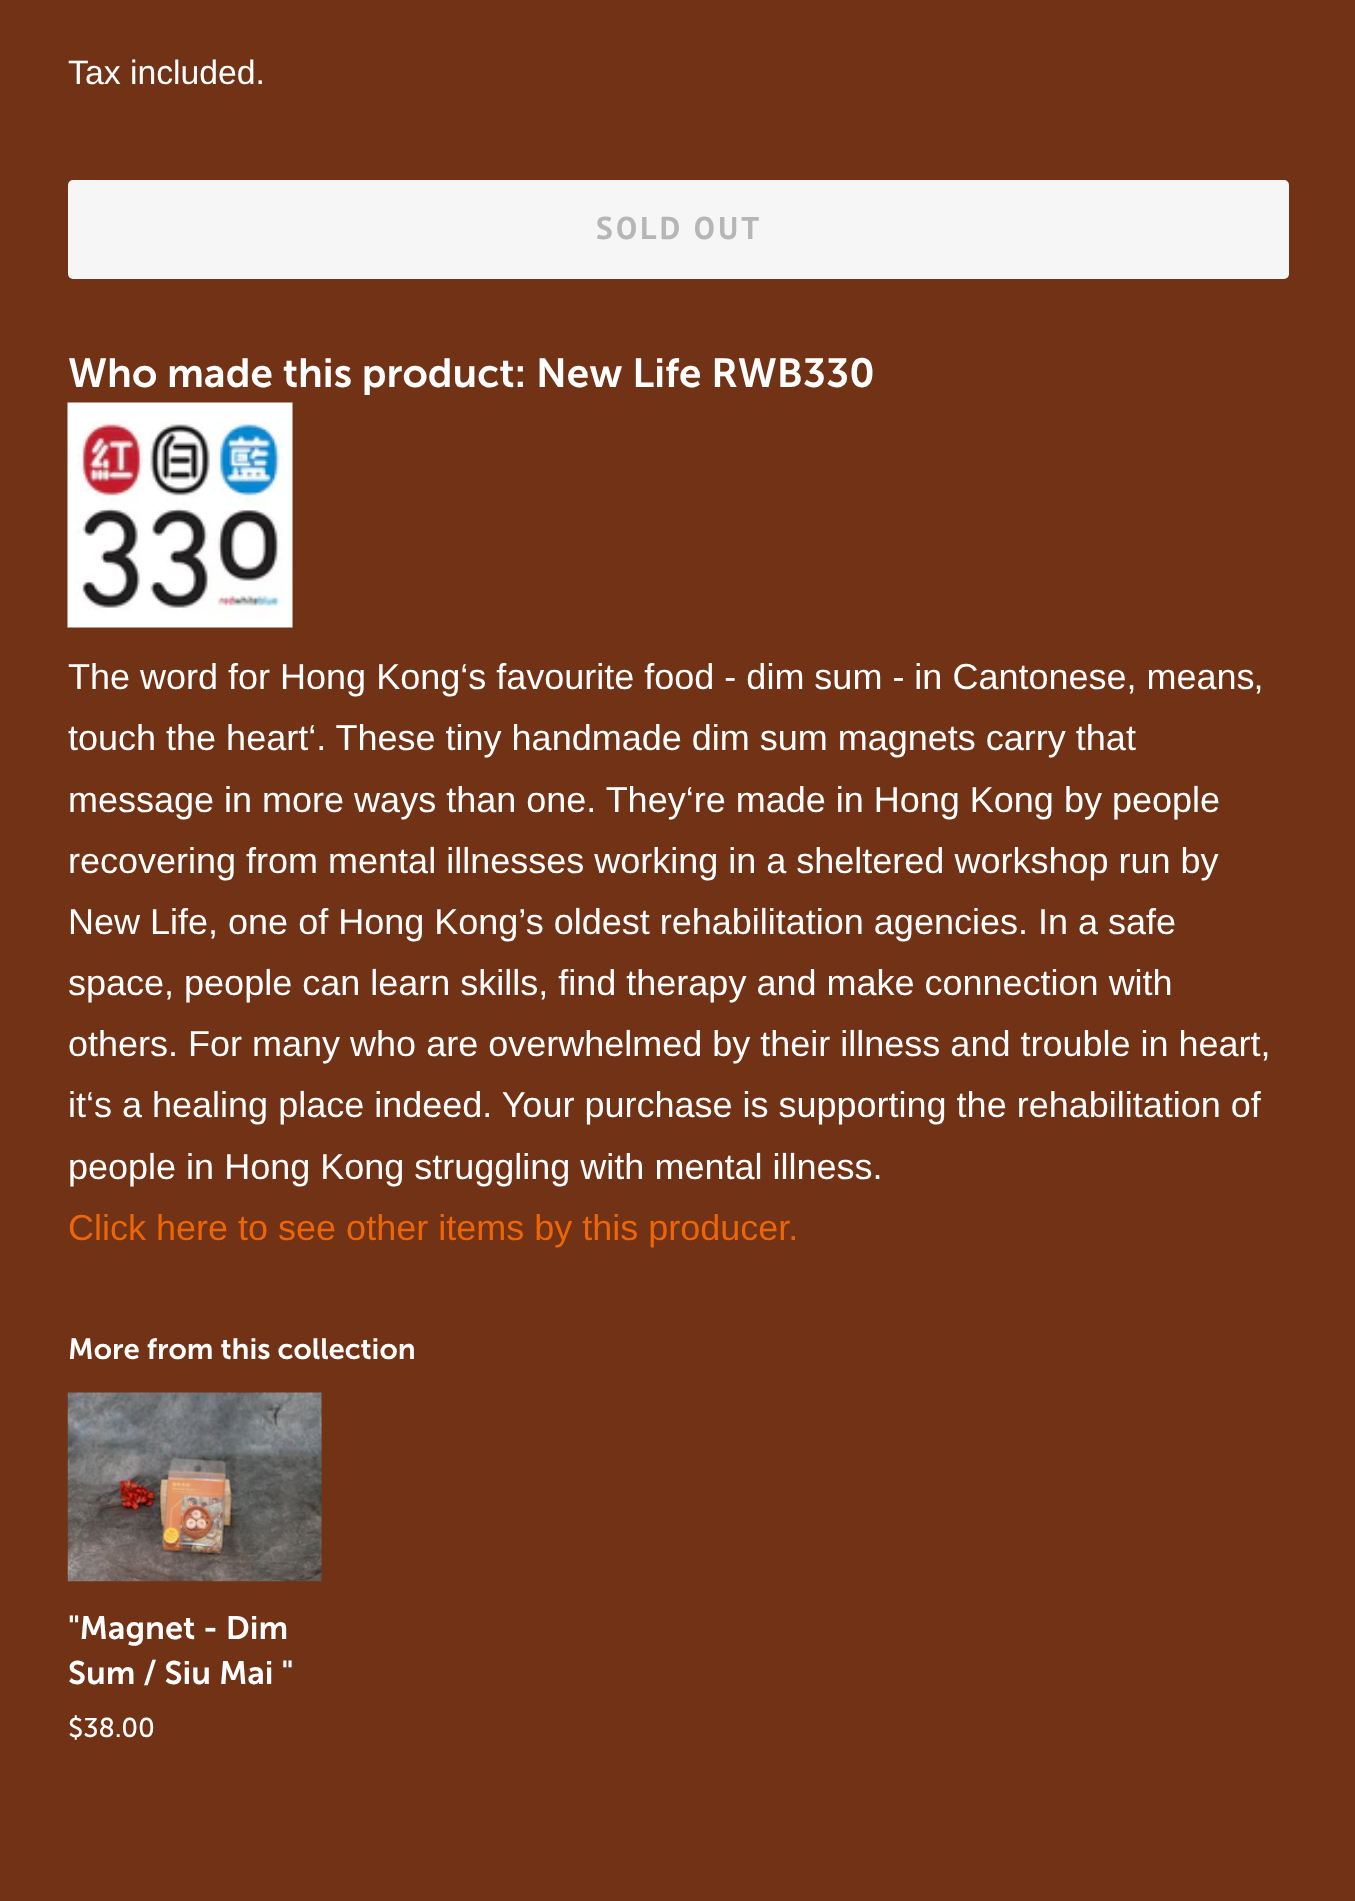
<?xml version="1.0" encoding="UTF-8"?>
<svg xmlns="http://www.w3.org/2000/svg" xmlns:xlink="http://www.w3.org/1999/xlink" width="1355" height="1901">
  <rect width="100%" height="100%" fill="#713216" />
  <rect x="68" y="180" width="1221" height="99" rx="5" fill="#f6f6f6" />
  <image x="67" y="402" width="226" height="226" xlink:href="image1.png" />
  <image x="67" y="1392" width="255" height="190" xlink:href="image2.png" />
  <text x="68" y="84" style="font-family: Liberation Sans; font-size: 33.75px; fill: #ffffff">Tax included.</text>
  <text x="596" y="239" style="font-family: PT Sans; font-size: 31.5px; font-weight: bold; letter-spacing: 3.25px; fill: #b6b6b6">SOLD OUT</text>
  <text x="68" y="387" style="font-family: 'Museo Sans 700'; font-size: 40.5px; font-weight: 600; fill: #ffffff">Who made this product: New Life RWB330</text>
  <text x="68" y="689" style="font-family: Liberation Sans; font-size: 36px; fill: #ffffff">The word for Hong Kong‘s favourite food - dim sum - in Cantonese, means‚</text>
  <text x="68" y="750" style="font-family: Liberation Sans; font-size: 36px; fill: #ffffff">touch the heart‘. These tiny handmade dim sum magnets carry that</text>
  <text x="68" y="812" style="font-family: Liberation Sans; font-size: 36px; fill: #ffffff">message in more ways than one. They‘re made in Hong Kong by people</text>
  <text x="68" y="873" style="font-family: Liberation Sans; font-size: 36px; fill: #ffffff">recovering from mental illnesses working in a sheltered workshop run by</text>
  <text x="68" y="934" style="font-family: Liberation Sans; font-size: 36px; fill: #ffffff">New Life, one of Hong Kong’s oldest rehabilitation agencies. In a safe</text>
  <text x="68" y="995" style="font-family: Liberation Sans; font-size: 36px; fill: #ffffff">space, people can learn skills, find therapy and make connection with</text>
  <text x="68" y="1056" style="font-family: Liberation Sans; font-size: 36px; fill: #ffffff">others. For many who are overwhelmed by their illness and trouble in heart,</text>
  <text x="68" y="1117" style="font-family: Liberation Sans; font-size: 36px; fill: #ffffff">it‘s a healing place indeed. Your purchase is supporting the rehabilitation of</text>
  <text x="68" y="1179" style="font-family: Liberation Sans; font-size: 36px; fill: #ffffff">people in Hong Kong struggling with mental illness.</text>
  <text x="68" y="1240" style="font-family: Liberation Sans; font-size: 36px; fill: #ec6608">Click here to see other items by this producer.</text>
  <text x="68" y="1359" style="font-family: 'Museo Sans 700'; font-size: 29.25px; font-weight: 600; fill: #ffffff">More from this collection</text>
  <text x="68" y="1639" style="font-family: 'Museo Sans 700'; font-size: 32.5px; font-weight: 600; fill: #ffffff">"Magnet - Dim</text>
  <text x="68" y="1684" style="font-family: 'Museo Sans 700'; font-size: 32.5px; font-weight: 600; fill: #ffffff">Sum / Siu Mai "</text>
  <text x="68" y="1737" style="font-family: 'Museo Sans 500'; font-size: 27px; fill: #ffffff">$38.00</text>
</svg>
